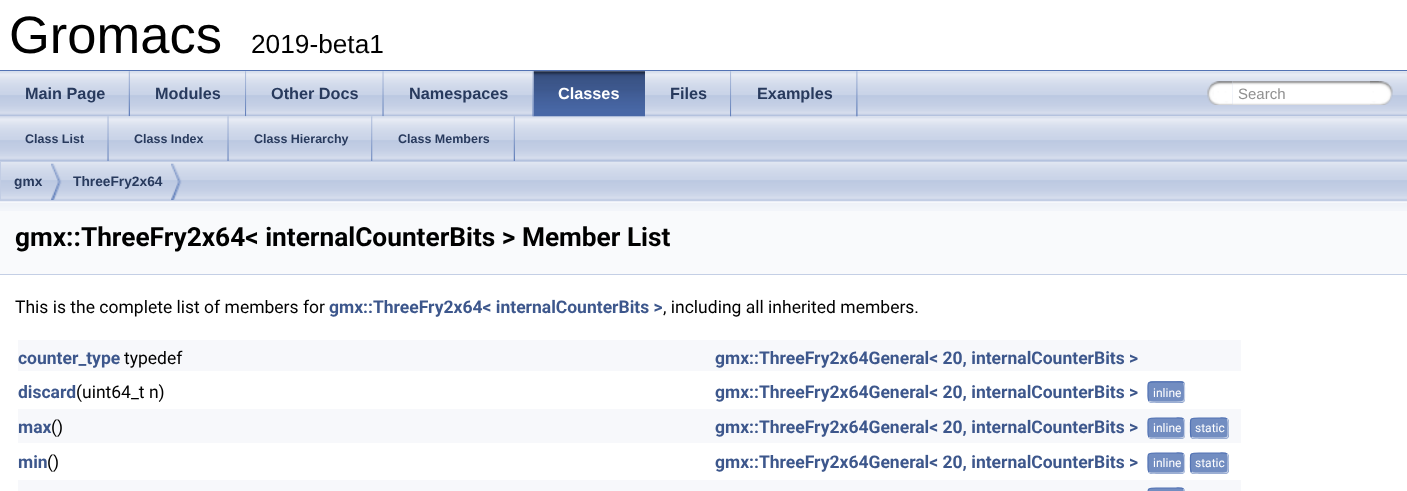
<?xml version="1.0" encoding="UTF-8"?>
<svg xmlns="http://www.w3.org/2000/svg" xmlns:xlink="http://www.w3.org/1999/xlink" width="1407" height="491">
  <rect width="100%" height="100%" fill="#ffffff" />
  <rect y="70" width="1407" height="1" fill="#5373b4" />
  <image x="0" y="71" width="1407" height="46" xlink:href="image1.png" />
  <image x="0" y="116" width="1407" height="45" xlink:href="image17.png" />
  <image x="0" y="71" width="130" height="46" xlink:href="image2.png" />
  <image x="128" y="71" width="2" height="46" xlink:href="image3.png" />
  <image x="130" y="71" width="116" height="46" xlink:href="image4.png" />
  <image x="245" y="71" width="2" height="46" xlink:href="image5.png" />
  <image x="246" y="71" width="138" height="46" xlink:href="image6.png" />
  <image x="382" y="71" width="2" height="46" xlink:href="image7.png" />
  <image x="383" y="71" width="151" height="46" xlink:href="image8.png" />
  <image x="532" y="71" width="2" height="46" xlink:href="image7.png" />
  <image x="533" y="71" width="112" height="46" xlink:href="image9.png" />
  <image x="533" y="71" width="112" height="46" xlink:href="image10.png" />
  <image x="645" y="71" width="86" height="46" xlink:href="image11.png" />
  <image x="730" y="71" width="2" height="46" xlink:href="image5.png" />
  <image x="731" y="71" width="127" height="46" xlink:href="image12.png" />
  <image x="856" y="71" width="2" height="46" xlink:href="image13.png" />
  <image x="1207" y="81" width="26" height="24" xlink:href="image14.png" />
  <image x="1232" y="81" width="147" height="24" xlink:href="image15.png" />
  <image x="1370" y="81" width="23" height="24" xlink:href="image16.png" />
  <image x="107" y="116" width="2" height="45" xlink:href="image18.png" />
  <image x="108" y="116" width="121" height="45" xlink:href="image19.png" />
  <image x="227" y="116" width="2" height="45" xlink:href="image20.png" />
  <image x="228" y="116" width="145" height="45" xlink:href="image21.png" />
  <image x="371" y="116" width="2" height="45" xlink:href="image22.png" />
  <image x="372" y="116" width="143" height="45" xlink:href="image23.png" />
  <image x="513" y="116" width="2" height="45" xlink:href="image24.png" />
  <rect y="201" width="1407" height="73" fill="#f9fafc" />
  <image x="0" y="201" width="1407" height="10" xlink:href="image27.png" />
  <image x="0" y="162" width="1407" height="40" xlink:href="image25.png" />
  <rect x="0.5" y="161.5" width="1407" height="39" fill="none" stroke="#c2cde4" />
  <image x="51" y="163" width="11" height="37" xlink:href="image26.png" />
  <image x="171" y="163" width="11" height="37" xlink:href="image26.png" />
  <rect y="274" width="1407" height="1" fill="#c4cfe5" />
  <rect x="18" y="340" width="1223" height="31" fill="#f7f8fb" />
  <rect x="1148" y="381" width="37" height="22" rx="4" fill="#728dc1" />
  <path d="M 1183.5 383 c 1.5 1.5 1 7 1 9 c 0 9.5 1.5 10 -8.5 10 h -20 c -1.5 0 -5.5 0.5 -7 -1" fill="none" stroke="#c4cfe5" stroke-width="1.2" />
  <path d="M 1149 401 c -1.5 -2 -1 -7 -1 -9 c 0 -10 -1.5 -10 8 -10 h 20 c 2 0 6 -1 7.5 1" fill="none" stroke="#5373b4" stroke-width="1.2" />
  <rect x="18" y="409" width="1223" height="34" fill="#f7f8fb" />
  <rect x="1148" y="418" width="37" height="21" rx="4" fill="#728dc1" />
  <path d="M 1183.5 419 c 1.5 2 1 7 1 9 c 0 10 1.5 10 -8.5 10 h -20 c -1.5 0 -5.5 1 -7 -1" fill="none" stroke="#c4cfe5" stroke-width="1.2" />
  <path d="M 1149 437 c -1.5 -1.5 -1 -7 -1 -9 c 0 -9.5 -1.5 -10 8 -10 h 20 c 2 0 6 -0.5 7.5 1" fill="none" stroke="#5373b4" stroke-width="1.2" />
  <rect x="1190" y="418" width="39" height="21" rx="4" fill="#728dc1" />
  <path d="M 1227 419 c 2 2 1 7 1 9 c 0 10 1.5 10 -8 10 h -21 c -1.5 0 -5.5 1 -7.5 -1" fill="none" stroke="#c4cfe5" stroke-width="1.2" />
  <path d="M 1191.5 437 c -1.5 -1.5 -1 -7 -1 -9 c 0 -9.5 -1.5 -10 8.5 -10 h 21 c 1.5 0 5.5 -0.5 7 1" fill="none" stroke="#5373b4" stroke-width="1.2" />
  <rect x="1148" y="453" width="37" height="21" rx="4" fill="#728dc1" />
  <path d="M 1183.5 454 c 1.5 2 1 7 1 9 c 0 10 1.5 10 -8.5 10 h -20 c -1.5 0 -5.5 1 -7 -1" fill="none" stroke="#c4cfe5" stroke-width="1.2" />
  <path d="M 1149 472 c -1.5 -1.5 -1 -7 -1 -9 c 0 -9.5 -1.5 -10 8 -10 h 20 c 2 0 6 -0.5 7.5 1" fill="none" stroke="#5373b4" stroke-width="1.2" />
  <rect x="1190" y="453" width="39" height="21" rx="4" fill="#728dc1" />
  <path d="M 1227 454 c 2 2 1 7 1 9 c 0 10 1.5 10 -8 10 h -21 c -1.5 0 -5.5 1 -7.5 -1" fill="none" stroke="#c4cfe5" stroke-width="1.2" />
  <path d="M 1191.5 472 c -1.5 -1.5 -1 -7 -1 -9 c 0 -9.5 -1.5 -10 8.5 -10 h 21 c 1.5 0 5.5 -0.5 7 1" fill="none" stroke="#5373b4" stroke-width="1.2" />
  <rect x="18" y="480" width="1223" height="11" fill="#f7f8fb" />
  <rect x="1148" y="488" width="37" height="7" rx="4" fill="#728dc1" />
  <path d="M 1183.5 489 c 1.5 2 1 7 1 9 c 0 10 1.5 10 -8.5 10 h -20 c -1.5 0 -5.5 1 -7 -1" fill="none" stroke="#c4cfe5" stroke-width="1.2" />
  <path d="M 1149 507 c -1.5 -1.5 -1 -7 -1 -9 c 0 -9.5 -1.5 -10 8 -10 h 20 c 2 0 6 -0.5 7.5 1" fill="none" stroke="#5373b4" stroke-width="1.2" />
  <text x="9" y="53" style="font-family: Liberation Sans; font-size: 52.5px; fill: #000000">Gromacs</text>
  <text x="251" y="53" style="font-family: Liberation Sans; font-size: 26.25px; fill: #000000">2019-beta1</text>
  <text x="25" y="99" style="font-family: Liberation Sans; font-size: 16.25px; font-weight: bold; fill: #283a5d">Main Page</text>
  <text x="155" y="99" style="font-family: Liberation Sans; font-size: 16.25px; font-weight: bold; fill: #283a5d">Modules</text>
  <text x="271" y="99" style="font-family: Liberation Sans; font-size: 16.25px; font-weight: bold; fill: #283a5d">Other Docs</text>
  <text x="409" y="99" style="font-family: Liberation Sans; font-size: 16.25px; font-weight: bold; fill: #283a5d">Namespaces</text>
  <text x="558" y="99" style="font-family: Liberation Sans; font-size: 16.25px; font-weight: bold; fill: #ffffff">Classes</text>
  <text x="670" y="99" style="font-family: Liberation Sans; font-size: 16.25px; font-weight: bold; fill: #283a5d">Files</text>
  <text x="757" y="99" style="font-family: Liberation Sans; font-size: 16.25px; font-weight: bold; fill: #283a5d">Examples</text>
  <text x="1238" y="99" style="font-family: Liberation Sans; font-size: 15px; fill: #909090">Search</text>
  <text x="25" y="143" style="font-family: Liberation Sans; font-size: 12.5px; font-weight: bold; fill: #283a5d">Class List</text>
  <text x="134" y="143" style="font-family: Liberation Sans; font-size: 12.5px; font-weight: bold; fill: #283a5d">Class Index</text>
  <text x="254" y="143" style="font-family: Liberation Sans; font-size: 12.5px; font-weight: bold; fill: #283a5d">Class Hierarchy</text>
  <text x="398" y="143" style="font-family: Liberation Sans; font-size: 12.5px; font-weight: bold; fill: #283a5d">Class Members</text>
  <text x="14" y="186" style="font-family: Liberation Sans; font-size: 13.75px; font-weight: bold; fill: #283a5d">gmx</text>
  <text x="73" y="186" style="font-family: Liberation Sans; font-size: 13.75px; font-weight: bold; fill: #283a5d">ThreeFry2x64</text>
  <text x="15" y="246" style="font-family: Roboto; font-size: 26.25px; font-weight: bold; fill: #000000">gmx::ThreeFry2x64&lt; internalCounterBits &gt; Member List</text>
  <text x="15" y="313" style="font-family: Roboto; font-size: 17.5px; fill: #000000">This is the complete list of members for</text>
  <text x="329" y="313" style="font-family: Roboto; font-size: 17.5px; font-weight: bold; fill: #3d578c">gmx::ThreeFry2x64&lt; internalCounterBits &gt;</text>
  <text x="663" y="313" style="font-family: Roboto; font-size: 17.5px; fill: #000000">, including all inherited members.</text>
  <text x="18" y="364" style="font-family: Roboto; font-size: 17.5px; font-weight: bold; fill: #3d578c">counter_type</text>
  <text x="124" y="364" style="font-family: Roboto; font-size: 17.5px; fill: #000000">typedef</text>
  <text x="715" y="364" style="font-family: Roboto; font-size: 17.5px; font-weight: bold; fill: #3d578c">gmx::ThreeFry2x64General&lt; 20, internalCounterBits &gt;</text>
  <text x="18" y="398" style="font-family: Roboto; font-size: 17.5px; font-weight: bold; fill: #3d578c">discard</text>
  <text x="76" y="398" style="font-family: Roboto; font-size: 17.5px; fill: #000000">(uint64_t n)</text>
  <text x="715" y="398" style="font-family: Roboto; font-size: 17.5px; font-weight: bold; fill: #3d578c">gmx::ThreeFry2x64General&lt; 20, internalCounterBits &gt;</text>
  <text x="1153" y="397" style="font-family: Roboto; font-size: 12px; fill: #ffffff">inline</text>
  <text x="18" y="433" style="font-family: Roboto; font-size: 17.5px; font-weight: bold; fill: #3d578c">max</text>
  <text x="51" y="433" style="font-family: Roboto; font-size: 17.5px; fill: #000000">()</text>
  <text x="715" y="433" style="font-family: Roboto; font-size: 17.5px; font-weight: bold; fill: #3d578c">gmx::ThreeFry2x64General&lt; 20, internalCounterBits &gt;</text>
  <text x="1153" y="432" style="font-family: Roboto; font-size: 12px; fill: #ffffff">inline</text>
  <text x="1195" y="432" style="font-family: Roboto; font-size: 12px; fill: #ffffff">static</text>
  <text x="18" y="468" style="font-family: Roboto; font-size: 17.5px; font-weight: bold; fill: #3d578c">min</text>
  <text x="47" y="468" style="font-family: Roboto; font-size: 17.5px; fill: #000000">()</text>
  <text x="715" y="468" style="font-family: Roboto; font-size: 17.5px; font-weight: bold; fill: #3d578c">gmx::ThreeFry2x64General&lt; 20, internalCounterBits &gt;</text>
  <text x="1153" y="467" style="font-family: Roboto; font-size: 12px; fill: #ffffff">inline</text>
  <text x="1195" y="467" style="font-family: Roboto; font-size: 12px; fill: #ffffff">static</text>
</svg>
